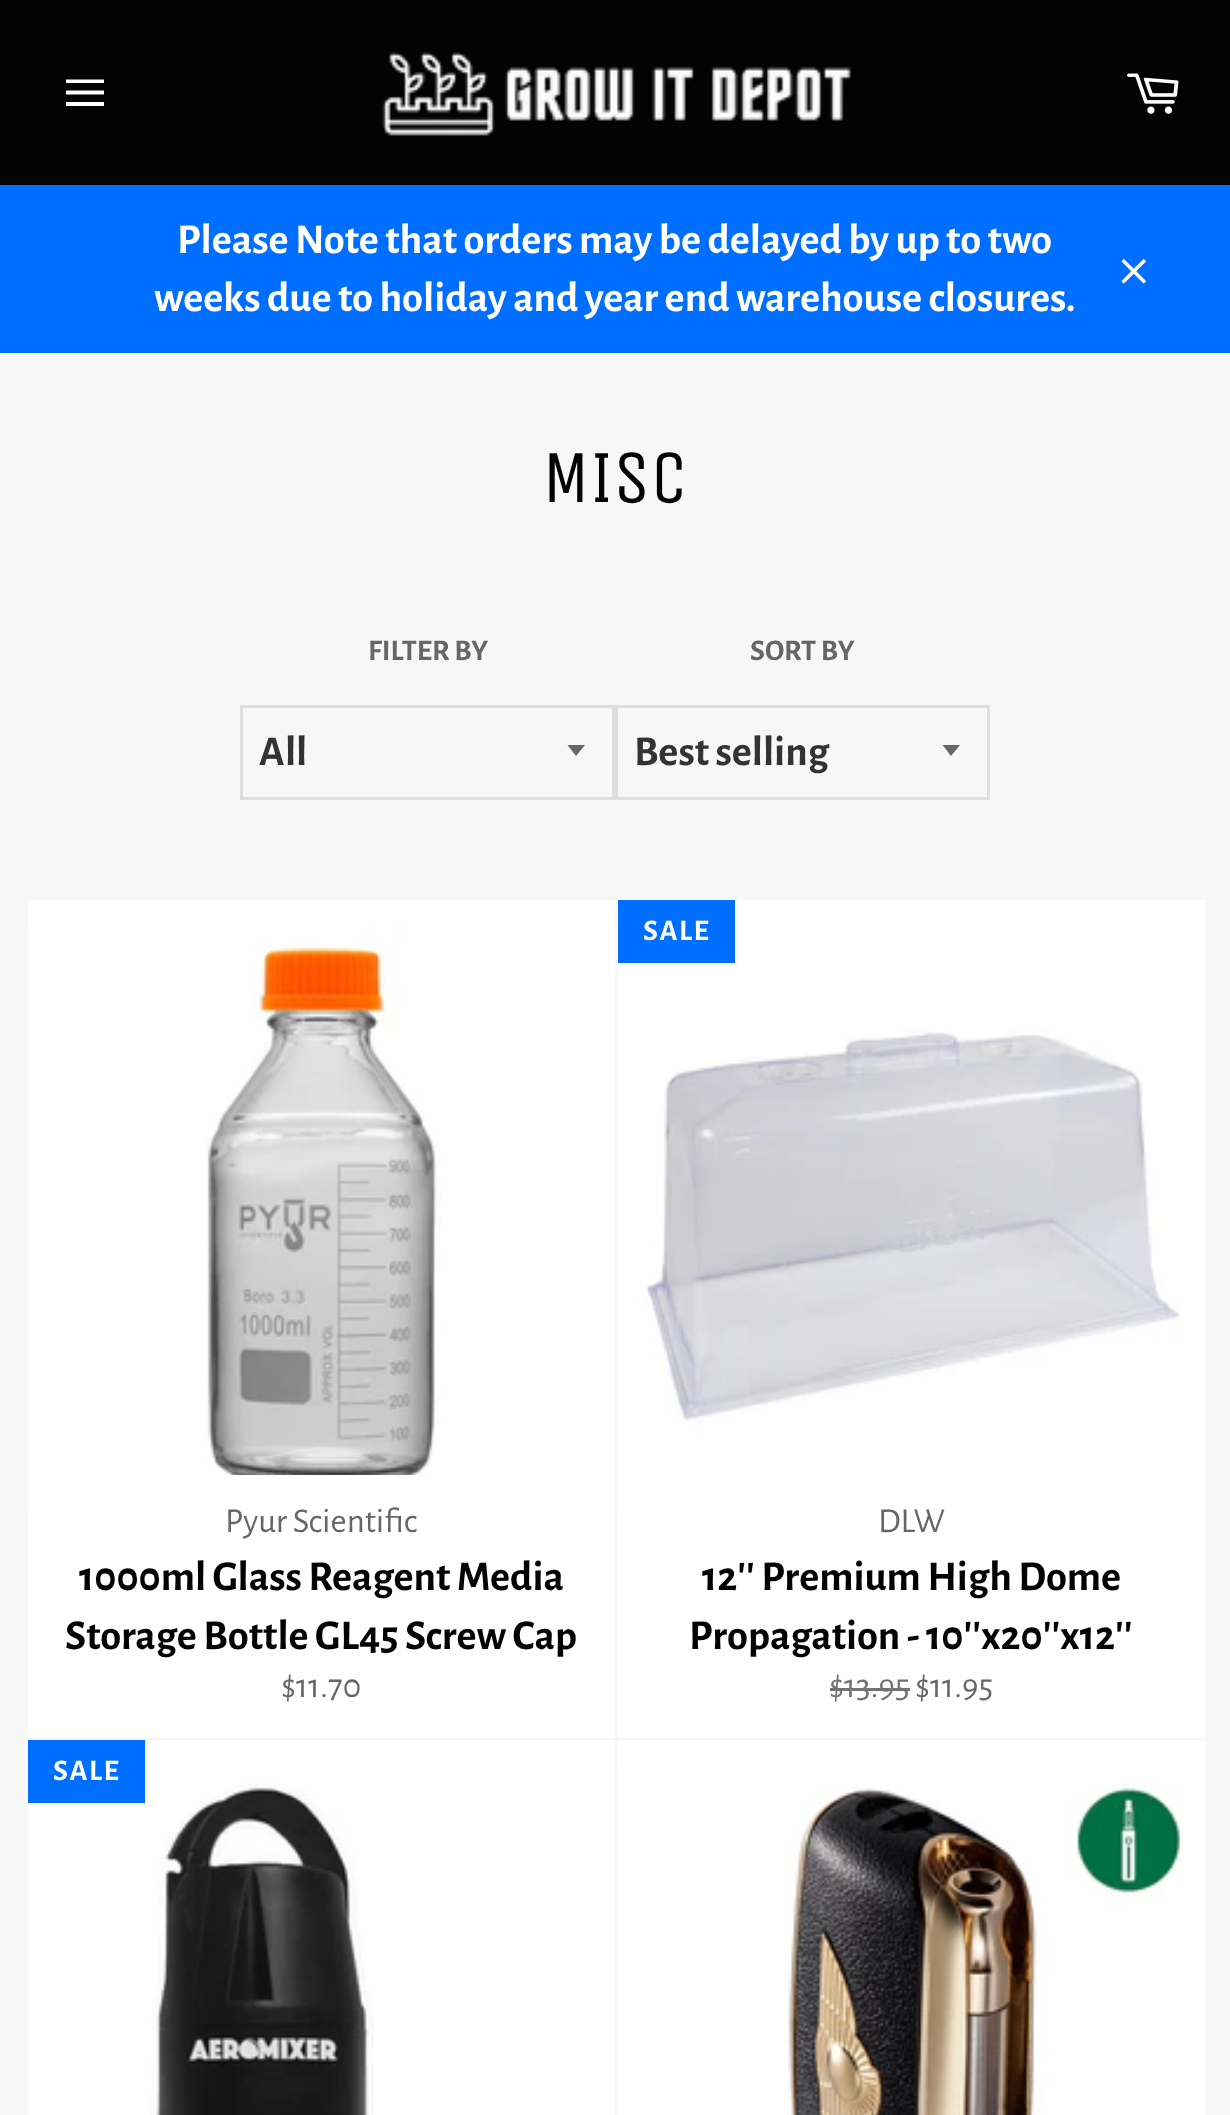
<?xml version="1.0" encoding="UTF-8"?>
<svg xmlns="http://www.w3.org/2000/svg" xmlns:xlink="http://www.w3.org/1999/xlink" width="1230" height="2115">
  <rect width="100%" height="100%" fill="#f7f7f7" />
  <rect width="1230" height="185" fill="#030303" />
  <path d="M 66 90.5 h 38 v 4 h -38 z m 0 -11 h 38 v 3.5 h -38 z m 0 22.5 h 38 v 4 h -38 z" fill="#ffffff" />
  <image x="382" y="52" width="469" height="84" xlink:href="image1.png" />
  <image x="1127" y="73" width="52" height="41" xlink:href="image2.png" />
  <rect y="185" width="1230" height="168" fill="#006eff" />
  <image x="1121" y="259" width="25" height="25" xlink:href="image3.png" />
  <path d="M 567.5 745 l 8.5 11 l 9 -11 z" fill="#666666" />
  <rect x="241.5" y="706.5" width="372" height="92" fill="none" stroke="#dedede" stroke-width="3" />
  <path d="M 942.5 745 l 8.5 11 l 9 -11 z" fill="#666666" />
  <rect x="616.5" y="706.5" width="372" height="92" fill="none" stroke="#dedede" stroke-width="3" />
  <rect x="28" y="900" width="587" height="575" fill="#ffffff" />
  <image x="27" y="925" width="414" height="587" xlink:href="image4.png" />
  <rect x="28" y="1475" width="587" height="263" fill="#ffffff" />
  <rect x="618" y="900" width="587" height="838" fill="#ffffff" />
  <image x="617" y="925" width="564" height="587" xlink:href="image5.png" />
  <rect x="618" y="900" width="117" height="63" fill="#006eff" />
  <rect x="830" y="1688" width="80" height="3" fill="#737373" />
  <rect x="145" y="1740" width="470" height="375" fill="#ffffff" />
  <image x="27" y="1765" width="347" height="350" xlink:href="image6.png" />
  <rect x="28" y="1740" width="117" height="63" fill="#006eff" />
  <rect x="618" y="1740" width="587" height="375" fill="#ffffff" />
  <image x="617" y="1765" width="566" height="350" xlink:href="image7.png" />
  <text x="177" y="253" style="font-family: Alegreya Sans; font-size: 42.5px; font-weight: bold; fill: #ffffff">Please Note that orders may be delayed by up to two</text>
  <text x="154" y="311" style="font-family: Alegreya Sans; font-size: 42.5px; font-weight: bold; fill: #ffffff">weeks due to holiday and year end warehouse closures.</text>
  <text x="542" y="502" style="font-family: Unica One; font-size: 75px; fill: #030303">MISC</text>
  <text x="368" y="660" style="font-family: Alegreya Sans; font-size: 30px; font-weight: bold; fill: #666666">FILTER BY</text>
  <text x="259" y="765" style="font-family: Alegreya Sans; font-size: 42.5px; font-weight: bold; fill: #333333">All</text>
  <text x="750" y="660" style="font-family: Alegreya Sans; font-size: 30px; font-weight: bold; fill: #666666">SORT BY</text>
  <text x="634" y="765" style="font-family: Alegreya Sans; font-size: 42.5px; font-weight: bold; fill: #333333">Best selling</text>
  <text x="225" y="1532" style="font-family: Alegreya Sans; font-size: 35px; fill: #666666">Pyur Scientific</text>
  <text x="79" y="1590" style="font-family: Alegreya Sans; font-size: 42.5px; font-weight: bold; fill: #030303">1000ml Glass Reagent Media</text>
  <text x="65" y="1649" style="font-family: Alegreya Sans; font-size: 42.5px; font-weight: bold; fill: #030303">Storage Bottle GL45 Screw Cap</text>
  <text x="281" y="1697" style="font-family: Alegreya Sans; font-size: 35px; fill: #666666">$11.70</text>
  <text x="643" y="940" style="font-family: Alegreya Sans; font-size: 30px; font-weight: bold; letter-spacing: 1.5px; fill: #ffffff">SALE</text>
  <text x="878" y="1532" style="font-family: Alegreya Sans; font-size: 35px; fill: #666666">DLW</text>
  <text x="702" y="1590" style="font-family: Alegreya Sans; font-size: 42.5px; font-weight: bold; fill: #030303">12'' Premium High Dome</text>
  <text x="689" y="1649" style="font-family: Alegreya Sans; font-size: 42.5px; font-weight: bold; fill: #030303">Propagation - 10''x20''x12''</text>
  <text x="829" y="1697" style="font-family: Alegreya Sans; font-size: 35px; fill: #737373">$13.95</text>
  <text x="915" y="1697" style="font-family: Alegreya Sans; font-size: 35px; fill: #666666">$11.95</text>
  <text x="53" y="1780" style="font-family: Alegreya Sans; font-size: 30px; font-weight: bold; letter-spacing: 1.5px; fill: #ffffff">SALE</text>
</svg>
